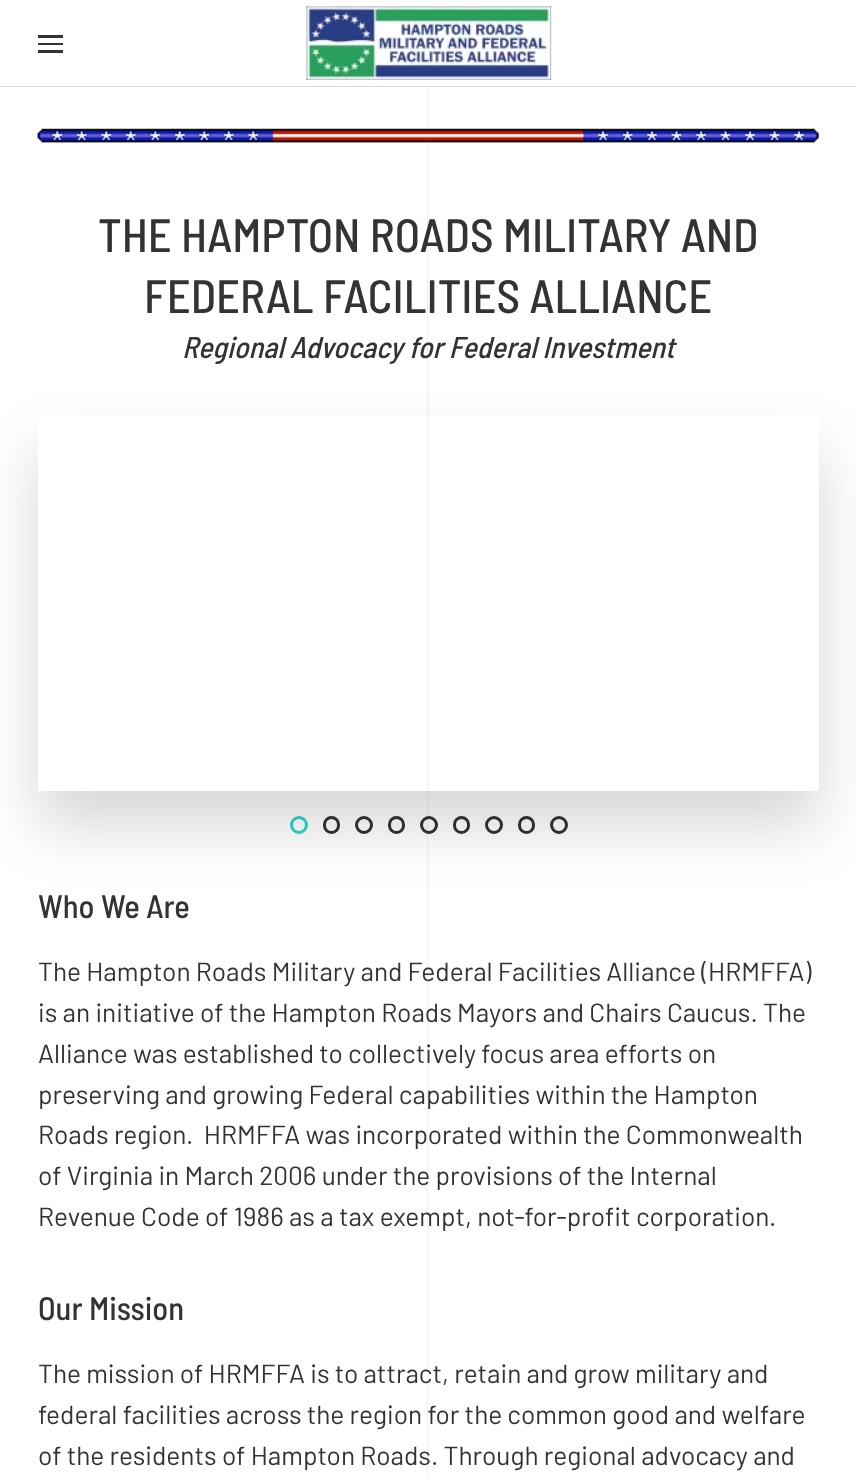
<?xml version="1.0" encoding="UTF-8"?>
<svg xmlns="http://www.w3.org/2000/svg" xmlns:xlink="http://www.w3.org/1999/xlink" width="856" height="1479">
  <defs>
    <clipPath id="clip1"><path d="M 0 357 h 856 v 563 h -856 z m 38 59 h 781 v 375 h -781 z" clip-rule="evenodd" /></clipPath>
  </defs>
  <rect width="100%" height="100%" fill="#ffffff" />
  <rect y="86" width="856" height="1" fill="#dddddd" />
  <rect x="38" y="35" width="25" height="3" fill="#333333" />
  <rect x="38" y="43" width="25" height="2" fill="#333333" />
  <rect x="38" y="50" width="25" height="3" fill="#333333" />
  <image x="306" y="6" width="246" height="74" xlink:href="image1.png" />
  <rect x="427" y="88" width="1" height="303" fill="#f0f0f0" />
  <image x="37" y="127" width="782" height="17" xlink:href="image2.png" />
  <image x="427" y="391" width="1" height="468" xlink:href="image3.png" />
  <circle cx="299" cy="825" r="7.5" fill="none" stroke="#29d8cb" stroke-width="3" />
  <rect x="324.5" y="817.5" width="14" height="15" rx="7" fill="none" stroke="#333333" stroke-width="3" />
  <circle cx="364" cy="825" r="7.5" fill="none" stroke="#333333" stroke-width="3" />
  <rect x="389.5" y="817.5" width="14" height="15" rx="7" fill="none" stroke="#333333" stroke-width="3" />
  <circle cx="429" cy="825" r="7.5" fill="none" stroke="#333333" stroke-width="3" />
  <rect x="454.5" y="817.5" width="14" height="15" rx="7" fill="none" stroke="#333333" stroke-width="3" />
  <circle cx="494" cy="825" r="7.5" fill="none" stroke="#333333" stroke-width="3" />
  <rect x="519.5" y="817.5" width="14" height="15" rx="7" fill="none" stroke="#333333" stroke-width="3" />
  <circle cx="559" cy="825" r="7.5" fill="none" stroke="#333333" stroke-width="3" />
  <rect x="427" y="859" width="1" height="620" fill="#f0f0f0" />
  <g clip-path="url(#clip1)">
    <rect x="38" y="451" width="781" height="375" fill="#000000" fill-opacity="0.16" filter="blur(31px)" />
  </g>
  <text x="98" y="252" style="font-family: Barlow Semi Condensed; font-size: 46.7px; font-weight: 500; fill: #333333">THE HAMPTON ROADS MILITARY AND</text>
  <text x="144" y="313" style="font-family: Barlow Semi Condensed; font-size: 46.7px; font-weight: 500; fill: #333333">FEDERAL FACILITIES ALLIANCE</text>
  <text x="182" y="358" style="font-family: Barlow Semi Condensed; font-size: 30px; font-weight: 500; font-style: italic; fill: #333333">Regional Advocacy for Federal Investment</text>
  <text x="38" y="918" style="font-family: Barlow Semi Condensed; font-size: 32.5px; font-weight: 500; fill: #333333">Who We Are</text>
  <text x="38" y="981" style="font-family: Barlow; font-size: 26.25px; fill: #333333">The Hampton Roads Military and Federal Facilities Alliance (HRMFFA)</text>
  <text x="38" y="1022" style="font-family: Barlow; font-size: 26.25px; fill: #333333">is an initiative of the Hampton Roads Mayors and Chairs Caucus. The</text>
  <text x="38" y="1063" style="font-family: Barlow; font-size: 26.25px; fill: #333333">Alliance was established to collectively focus area efforts on</text>
  <text x="38" y="1104" style="font-family: Barlow; font-size: 26.25px; fill: #333333">preserving and growing Federal capabilities within the Hampton</text>
  <text x="38" y="1144" style="font-family: Barlow; font-size: 26.25px; fill: #333333" xml:space="preserve">Roads region.  HRMFFA was incorporated within the Commonwealth</text>
  <text x="38" y="1185" style="font-family: Barlow; font-size: 26.25px; fill: #333333">of Virginia in March 2006 under the provisions of the Internal</text>
  <text x="38" y="1226" style="font-family: Barlow; font-size: 26.25px; fill: #333333">Revenue Code of 1986 as a tax exempt, not-for-profit corporation.</text>
  <text x="38" y="1320" style="font-family: Barlow Semi Condensed; font-size: 32.5px; font-weight: 500; fill: #333333">Our Mission</text>
  <text x="38" y="1383" style="font-family: Barlow; font-size: 26.25px; fill: #333333">The mission of HRMFFA is to attract, retain and grow military and</text>
  <text x="38" y="1424" style="font-family: Barlow; font-size: 26.25px; fill: #333333">federal facilities across the region for the common good and welfare</text>
  <text x="38" y="1465" style="font-family: Barlow; font-size: 26.25px; fill: #333333">of the residents of Hampton Roads. Through regional advocacy and</text>
</svg>
